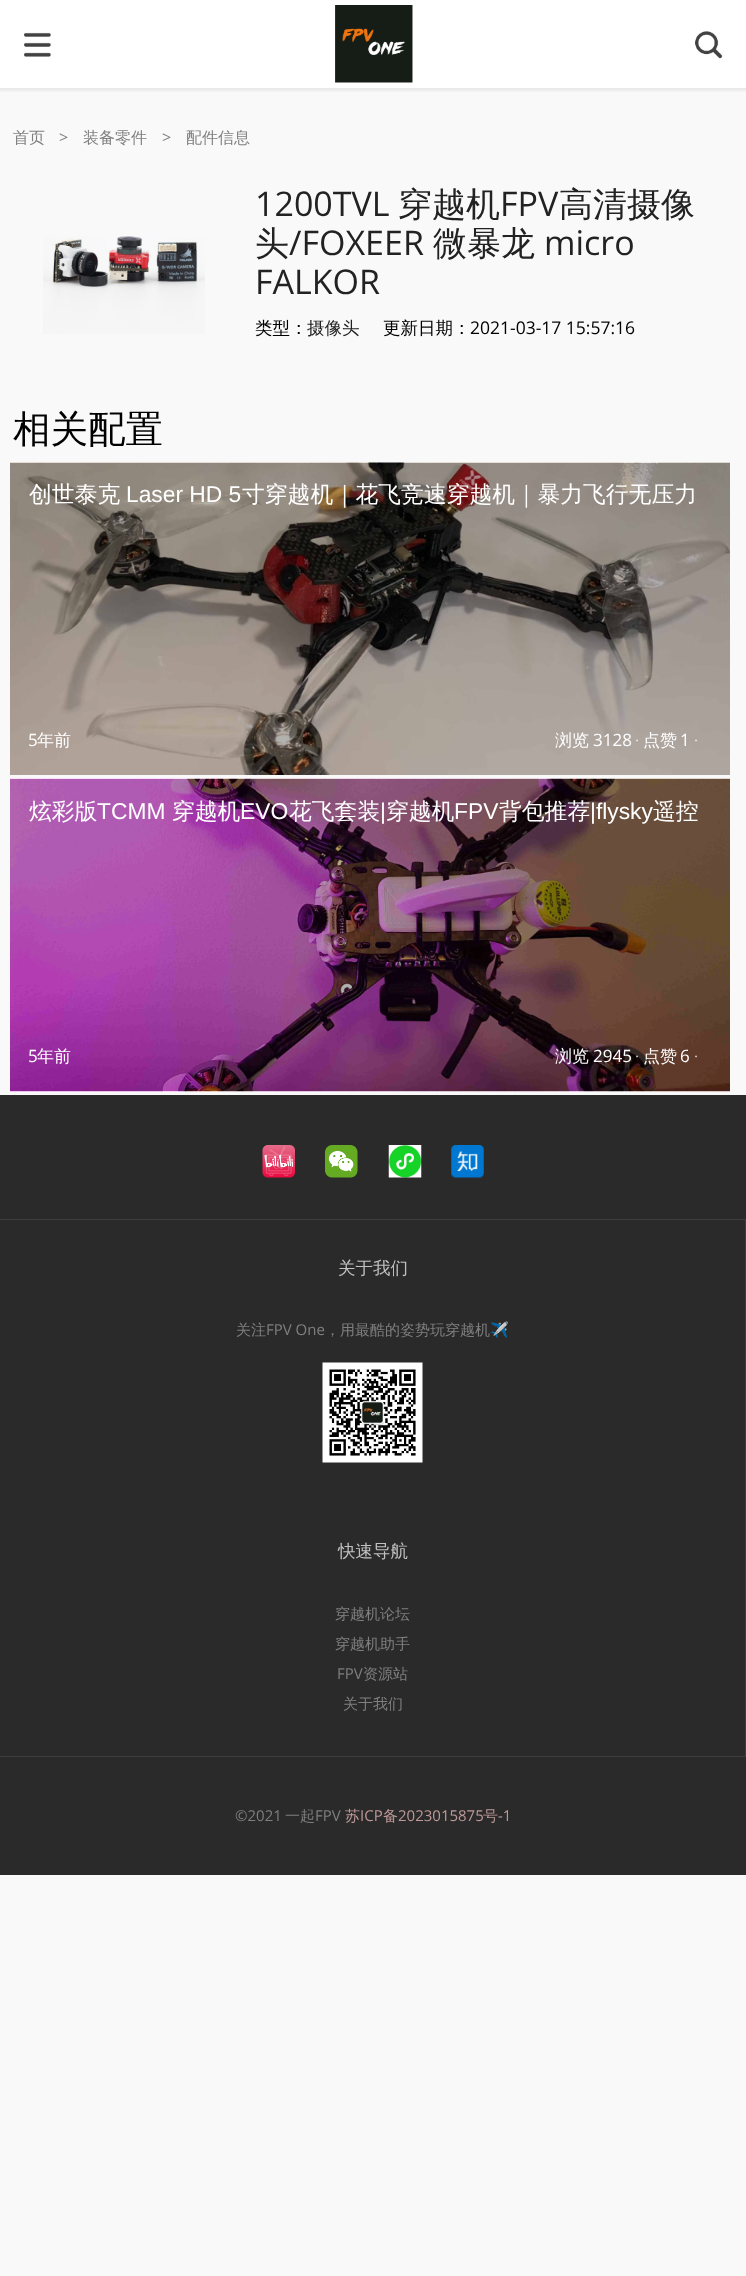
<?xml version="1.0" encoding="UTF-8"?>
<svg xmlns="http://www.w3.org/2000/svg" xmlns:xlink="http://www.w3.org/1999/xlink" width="746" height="2276">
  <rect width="100%" height="100%" fill="#f9f9f9" />
  <rect x="-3" y="-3" width="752" height="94" fill="#636363" fill-opacity="0.1" filter="blur(1px)" />
  <rect width="746" height="88" fill="#ffffff" />
  <image x="24" y="32" width="27" height="25" xlink:href="image1.png" />
  <image x="335" y="5" width="78" height="78" xlink:href="image2.png" />
  <image x="695" y="31" width="28" height="28" xlink:href="image3.png" />
  <image x="43" y="236" width="162" height="98" xlink:href="image4.png" />
  <image x="10" y="462" width="720" height="313" xlink:href="image5.png" />
  <image x="10" y="778" width="720" height="314" xlink:href="image6.png" />
  <rect y="1095" width="746" height="780" fill="#2a2a2a" />
  <rect y="1219" width="746" height="1" fill="#3e3e3e" />
  <image x="262" y="1145" width="33" height="33" xlink:href="image7.png" />
  <image x="325" y="1145" width="33" height="33" xlink:href="image8.png" />
  <image x="388" y="1145" width="34" height="33" xlink:href="image9.png" />
  <image x="451" y="1145" width="33" height="33" xlink:href="image10.png" />
  <rect x="745" y="1220" width="1" height="536" fill="#3e3e3e" />
  <image x="322" y="1362" width="101" height="101" xlink:href="image11.png" />
  <rect y="1756" width="746" height="1" fill="#3e3e3e" />
  <text x="13" y="143" style="font-family: WenQuanYi Zen Hei; font-size: 16px; font-weight: 500; fill: #7f7f7f">首页</text>
  <text x="59" y="143" style="font-family: Open Sans; font-size: 16px; fill: #7f7f7f">&gt;</text>
  <text x="83" y="143" style="font-family: WenQuanYi Zen Hei; font-size: 16px; font-weight: 500; fill: #7f7f7f">装备零件</text>
  <text x="162" y="143" style="font-family: Open Sans; font-size: 16px; fill: #7f7f7f">&gt;</text>
  <text x="186" y="143" style="font-family: WenQuanYi Zen Hei; font-size: 16px; font-weight: 500; fill: #7f7f7f">配件信息</text>
  <text x="255" y="216" style="font-family: Open Sans; font-size: 34px; fill: #222222">1200TVL</text>
  <text x="398" y="216" style="font-family: WenQuanYi Zen Hei; font-size: 34px; font-weight: 500; fill: #222222">穿越机</text>
  <text x="500" y="216" style="font-family: Open Sans; font-size: 34px; fill: #222222">FPV</text>
  <text x="559" y="216" style="font-family: WenQuanYi Zen Hei; font-size: 34px; font-weight: 500; fill: #222222">高清摄像</text>
  <text x="255" y="255" style="font-family: WenQuanYi Zen Hei; font-size: 34px; font-weight: 500; fill: #222222">头</text>
  <text x="289" y="255" style="font-family: Open Sans; font-size: 34px; fill: #222222">/FOXEER</text>
  <text x="433" y="255" style="font-family: WenQuanYi Zen Hei; font-size: 34px; font-weight: 500; fill: #222222">微暴龙</text>
  <text x="544" y="255" style="font-family: Open Sans; font-size: 34px; fill: #222222">micro</text>
  <text x="255" y="294" style="font-family: Open Sans; font-size: 34px; fill: #222222">FALKOR</text>
  <text x="255" y="334" style="font-family: WenQuanYi Zen Hei; font-size: 17.5px; font-weight: 500; fill: #000000">类型：</text>
  <text x="307" y="334" style="font-family: WenQuanYi Zen Hei; font-size: 17.5px; font-weight: 500; fill: #222222">摄像头</text>
  <text x="383" y="334" style="font-family: WenQuanYi Zen Hei; font-size: 17.5px; font-weight: 500; fill: #000000">更新日期：</text>
  <text x="470" y="334" style="font-family: Open Sans; font-size: 17.5px; fill: #000000">2021-03-17 15:57:16</text>
  <text x="13" y="442" style="font-family: WenQuanYi Zen Hei; font-size: 37.5px; font-weight: 500; fill: #000000">相关配置</text>
  <text x="29" y="502" style="font-family: WenQuanYi Zen Hei; font-size: 22.8px; font-weight: 500; fill: #ffffff">创世泰克</text>
  <text x="126" y="502" style="font-family: Liberation Sans; font-size: 22.8px; fill: #ffffff">Laser HD 5</text>
  <text x="242" y="502" style="font-family: WenQuanYi Zen Hei; font-size: 22.8px; font-weight: 500; fill: #ffffff">寸穿越机｜花飞竞速穿越机｜暴力飞行无压力</text>
  <text x="28" y="746" style="font-family: Open Sans; font-size: 17px; fill: #ffffff">5</text>
  <text x="37" y="746" style="font-family: WenQuanYi Zen Hei; font-size: 17px; font-weight: 500; fill: #ffffff">年前</text>
  <text x="555" y="746" style="font-family: WenQuanYi Zen Hei; font-size: 17px; font-weight: 500; fill: #ffffff">浏览</text>
  <text x="593" y="746" style="font-family: Open Sans; font-size: 17px; fill: #ffffff">3128</text>
  <text x="635" y="746" style="font-family: Open Sans; font-size: 17px; font-weight: 300; fill: #ffffff">·</text>
  <text x="643" y="746" style="font-family: WenQuanYi Zen Hei; font-size: 17px; font-weight: 500; fill: #ffffff">点赞</text>
  <text x="680" y="746" style="font-family: Open Sans; font-size: 17px; fill: #ffffff">1</text>
  <text x="694" y="746" style="font-family: Open Sans; font-size: 17px; font-weight: 300; fill: #ffffff">·</text>
  <text x="29" y="819" style="font-family: WenQuanYi Zen Hei; font-size: 22.8px; font-weight: 500; fill: #ffffff">炫彩版</text>
  <text x="97" y="819" style="font-family: Liberation Sans; font-size: 22.8px; fill: #ffffff">TCMM</text>
  <text x="172" y="819" style="font-family: WenQuanYi Zen Hei; font-size: 22.8px; font-weight: 500; fill: #ffffff">穿越机</text>
  <text x="240" y="819" style="font-family: Liberation Sans; font-size: 22.8px; fill: #ffffff">EVO</text>
  <text x="289" y="819" style="font-family: WenQuanYi Zen Hei; font-size: 22.8px; font-weight: 500; fill: #ffffff">花飞套装</text>
  <text x="380" y="819" style="font-family: Liberation Sans; font-size: 22.8px; fill: #ffffff">|</text>
  <text x="386" y="819" style="font-family: WenQuanYi Zen Hei; font-size: 22.8px; font-weight: 500; fill: #ffffff">穿越机</text>
  <text x="454" y="819" style="font-family: Liberation Sans; font-size: 22.8px; fill: #ffffff">FPV</text>
  <text x="499" y="819" style="font-family: WenQuanYi Zen Hei; font-size: 22.8px; font-weight: 500; fill: #ffffff">背包推荐</text>
  <text x="590" y="819" style="font-family: Liberation Sans; font-size: 22.8px; fill: #ffffff">|flysky</text>
  <text x="653" y="819" style="font-family: WenQuanYi Zen Hei; font-size: 22.8px; font-weight: 500; fill: #ffffff">遥控</text>
  <text x="28" y="1062" style="font-family: Open Sans; font-size: 17px; fill: #ffffff">5</text>
  <text x="37" y="1062" style="font-family: WenQuanYi Zen Hei; font-size: 17px; font-weight: 500; fill: #ffffff">年前</text>
  <text x="555" y="1062" style="font-family: WenQuanYi Zen Hei; font-size: 17px; font-weight: 500; fill: #ffffff">浏览</text>
  <text x="593" y="1062" style="font-family: Open Sans; font-size: 17px; fill: #ffffff">2945</text>
  <text x="635" y="1062" style="font-family: Open Sans; font-size: 17px; font-weight: 300; fill: #ffffff">·</text>
  <text x="643" y="1062" style="font-family: WenQuanYi Zen Hei; font-size: 17px; font-weight: 500; fill: #ffffff">点赞</text>
  <text x="680" y="1062" style="font-family: Open Sans; font-size: 17px; fill: #ffffff">6</text>
  <text x="694" y="1062" style="font-family: Open Sans; font-size: 17px; font-weight: 300; fill: #ffffff">·</text>
  <text x="338" y="1274" style="font-family: WenQuanYi Zen Hei; font-size: 17.5px; font-weight: 500; fill: #c1c1c1">关于我们</text>
  <text x="236" y="1335" style="font-family: WenQuanYi Zen Hei; font-size: 15px; font-weight: 500; fill: #7f7f7f">关注</text>
  <text x="266" y="1335" style="font-family: Open Sans; font-size: 15px; fill: #7f7f7f">FPV One</text>
  <text x="325" y="1335" style="font-family: WenQuanYi Zen Hei; font-size: 15px; font-weight: 500; fill: #7f7f7f">，用最酷的姿势玩穿越机</text>
  <text x="490" y="1335" style="font-family: Noto Color Emoji; font-size: 15px; fill: #7f7f7f">✈️</text>
  <text x="338" y="1557" style="font-family: WenQuanYi Zen Hei; font-size: 17.5px; font-weight: 500; fill: #c1c1c1">快速导航</text>
  <text x="335" y="1619" style="font-family: WenQuanYi Zen Hei; font-size: 15px; font-weight: 500; fill: #7f7f7f">穿越机论坛</text>
  <text x="335" y="1649" style="font-family: WenQuanYi Zen Hei; font-size: 15px; font-weight: 500; fill: #7f7f7f">穿越机助手</text>
  <text x="337" y="1679" style="font-family: Open Sans; font-size: 15px; fill: #7f7f7f">FPV</text>
  <text x="363" y="1679" style="font-family: WenQuanYi Zen Hei; font-size: 15px; font-weight: 500; fill: #7f7f7f">资源站</text>
  <text x="343" y="1709" style="font-family: WenQuanYi Zen Hei; font-size: 15px; font-weight: 500; fill: #7f7f7f">关于我们</text>
  <text x="235" y="1821" style="font-family: Open Sans; font-size: 15px; fill: #7f7f7f">©2021</text>
  <text x="285" y="1821" style="font-family: WenQuanYi Zen Hei; font-size: 15px; font-weight: 500; fill: #7f7f7f">一起</text>
  <text x="315" y="1821" style="font-family: Open Sans; font-size: 15px; fill: #7f7f7f">FPV</text>
  <text x="345" y="1821" style="font-family: WenQuanYi Zen Hei; font-size: 15px; font-weight: 500; fill: #bf9999">苏</text>
  <text x="360" y="1821" style="font-family: Open Sans; font-size: 15px; fill: #bf9999">ICP</text>
  <text x="383" y="1821" style="font-family: WenQuanYi Zen Hei; font-size: 15px; font-weight: 500; fill: #bf9999">备</text>
  <text x="398" y="1821" style="font-family: Open Sans; font-size: 15px; fill: #bf9999">2023015875</text>
  <text x="483" y="1821" style="font-family: WenQuanYi Zen Hei; font-size: 15px; font-weight: 500; fill: #bf9999">号</text>
  <text x="498" y="1821" style="font-family: Open Sans; font-size: 15px; fill: #bf9999">-1</text>
</svg>
